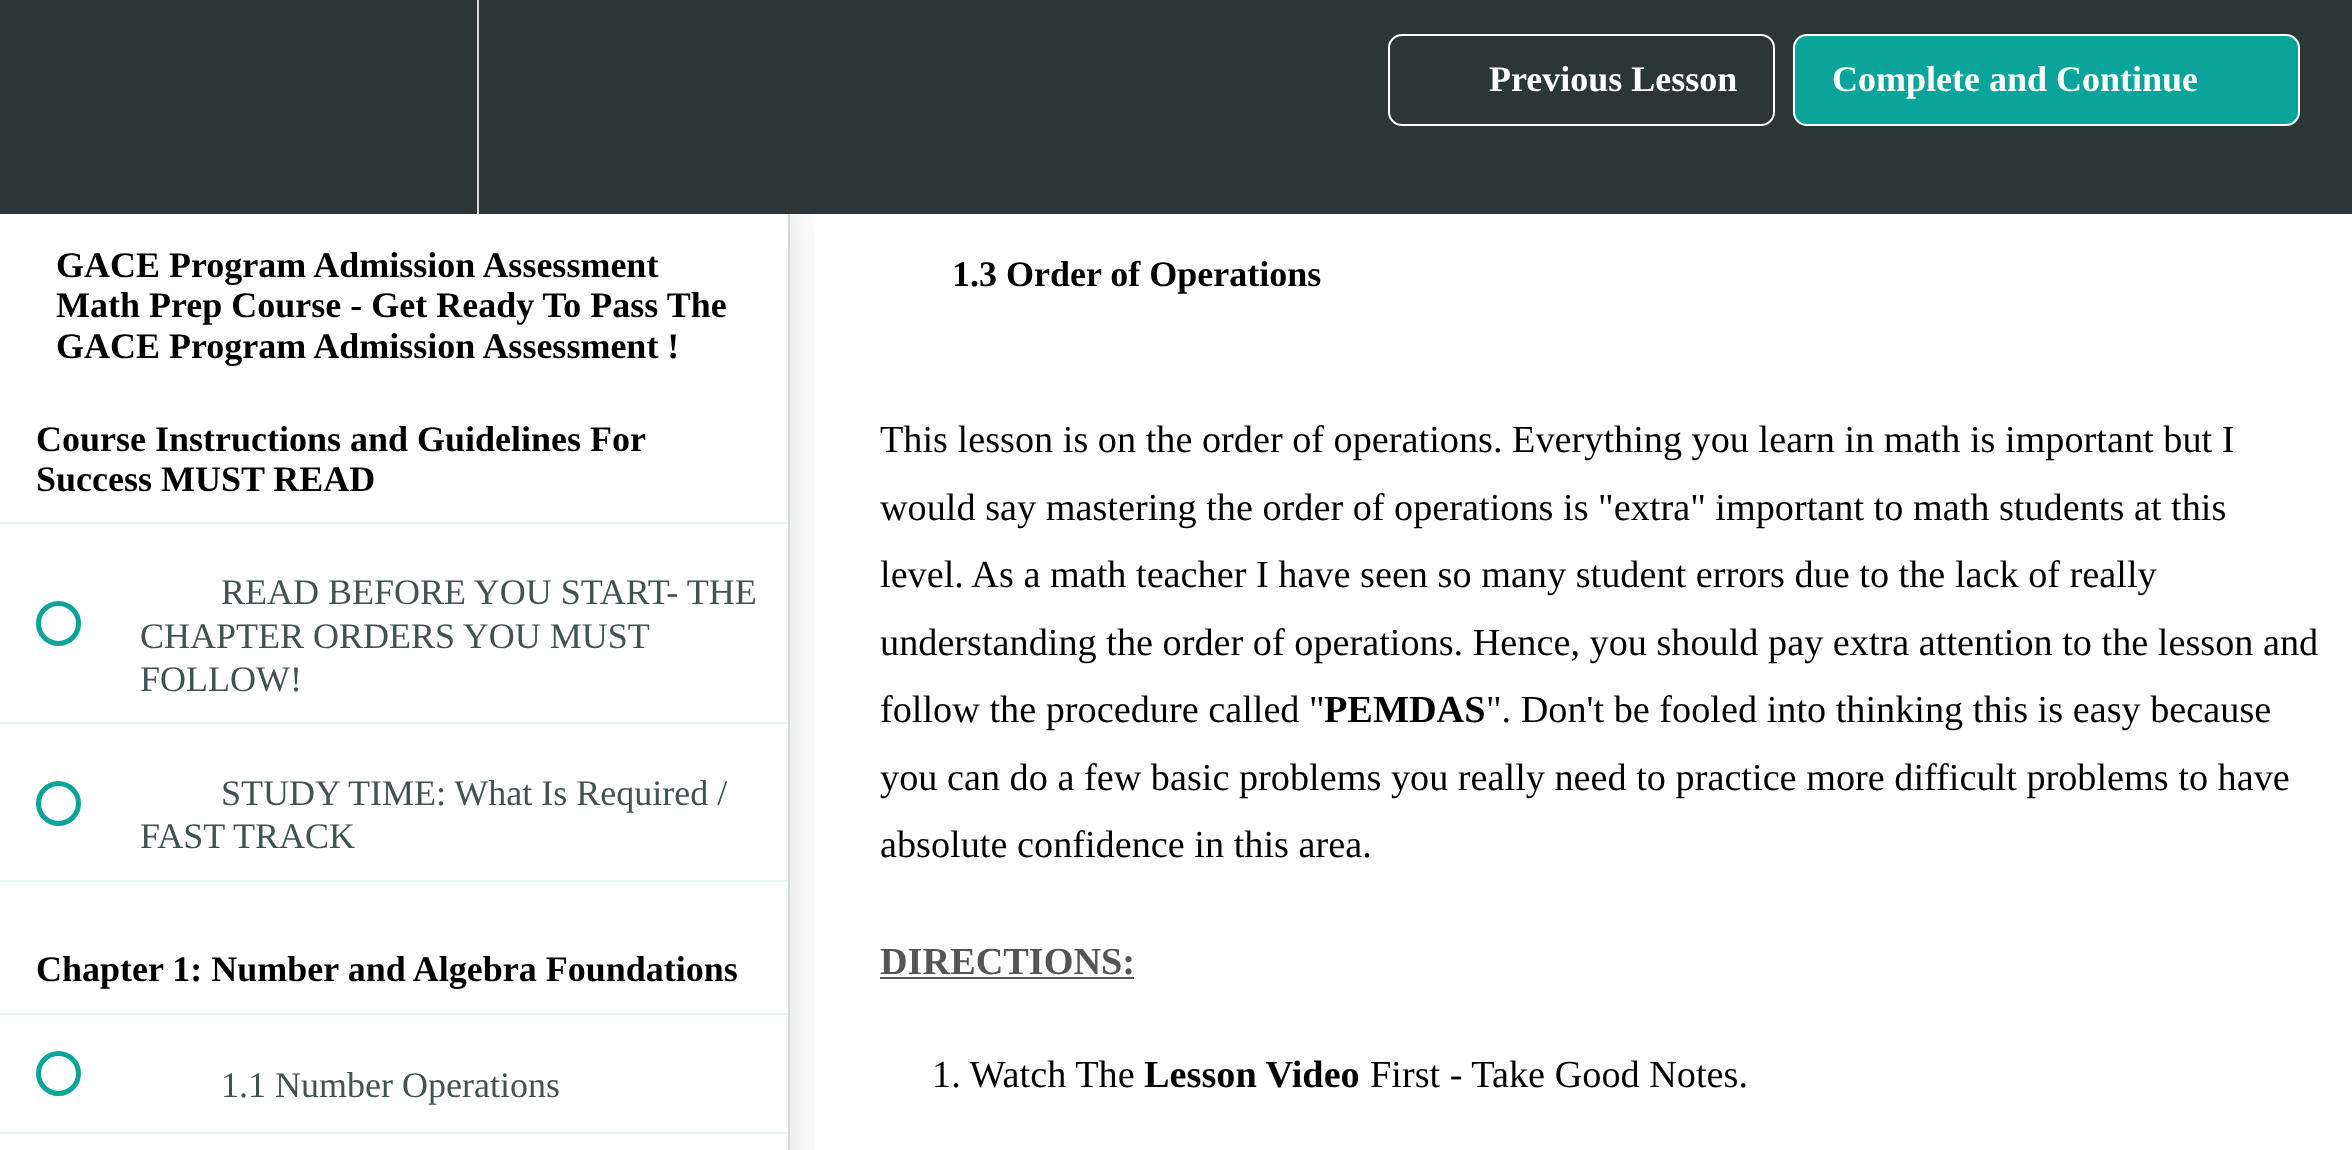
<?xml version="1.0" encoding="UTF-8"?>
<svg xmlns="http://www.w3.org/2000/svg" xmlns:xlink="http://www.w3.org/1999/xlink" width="2352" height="1150">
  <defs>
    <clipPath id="clip1"><rect x="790" y="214" width="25" height="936" /></clipPath>
  </defs>
  <rect width="100%" height="100%" fill="#ffffff" />
  <g clip-path="url(#clip1)">
    <rect y="203" width="790" height="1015" fill="#20272d" fill-opacity="0.15" filter="blur(22.5px)" />
  </g>
  <rect width="2352" height="214" fill="#2b3636" />
  <rect x="477" width="2" height="214" fill="#d7dadb" />
  <rect x="1389" y="35" width="385" height="90" rx="13" fill="none" stroke="#ffffff" stroke-width="2" />
  <rect x="1794" y="35" width="505" height="90" rx="13" fill="#09a59a" stroke="#ffffff" stroke-width="2" />
  <rect x="788" y="214" width="2" height="936" fill="#d7dadb" />
  <rect y="522" width="788" height="2" fill="#e6f6f5" />
  <rect y="722" width="788" height="2" fill="#e6f6f5" />
  <circle cx="58.5" cy="623.5" r="20" fill="none" stroke="#09a59a" stroke-width="5" />
  <rect y="880" width="788" height="2" fill="#e6f6f5" />
  <circle cx="58.5" cy="803.5" r="20" fill="none" stroke="#09a59a" stroke-width="5" />
  <rect y="1013" width="788" height="2" fill="#e6f6f5" />
  <rect y="1132" width="788" height="2" fill="#e6f6f5" />
  <circle cx="58.5" cy="1073.5" r="20" fill="none" stroke="#09a59a" stroke-width="5" />
  <rect x="880" y="977" width="254" height="2" fill="#555555" />
  <text x="1489" y="91" style="font-family: Liberation Serif; font-size: 36px; font-weight: bold; fill: #ffffff">Previous Lesson</text>
  <text x="1832" y="91" style="font-family: Liberation Serif; font-size: 36px; font-weight: bold; fill: #ffffff">Complete and Continue</text>
  <text x="56" y="277" style="font-family: Liberation Serif; font-size: 36px; font-weight: bold; fill: #000000">GACE Program Admission Assessment</text>
  <text x="56" y="317" style="font-family: Liberation Serif; font-size: 36px; font-weight: bold; fill: #000000">Math Prep Course - Get Ready To Pass The</text>
  <text x="56" y="358" style="font-family: Liberation Serif; font-size: 36px; font-weight: bold; fill: #000000">GACE Program Admission Assessment !</text>
  <text x="36" y="451" style="font-family: Liberation Serif; font-size: 36px; font-weight: bold; fill: #000000">Course Instructions and Guidelines For</text>
  <text x="36" y="491" style="font-family: Liberation Serif; font-size: 36px; font-weight: bold; fill: #000000">Success MUST READ</text>
  <text x="221" y="604" style="font-family: Liberation Serif; font-size: 36px; fill: #425252">READ BEFORE YOU START- THE</text>
  <text x="140" y="648" style="font-family: Liberation Serif; font-size: 36px; fill: #425252">CHAPTER ORDERS YOU MUST</text>
  <text x="140" y="691" style="font-family: Liberation Serif; font-size: 36px; fill: #425252">FOLLOW!</text>
  <text x="221" y="805" style="font-family: Liberation Serif; font-size: 36px; fill: #425252">STUDY TIME: What Is Required /</text>
  <text x="140" y="848" style="font-family: Liberation Serif; font-size: 36px; fill: #425252">FAST TRACK</text>
  <text x="36" y="981" style="font-family: Liberation Serif; font-size: 36px; font-weight: bold; fill: #000000">Chapter 1: Number and Algebra Foundations</text>
  <text x="221" y="1097" style="font-family: Liberation Serif; font-size: 36px; fill: #425252">1.1 Number Operations</text>
  <text x="952" y="286" style="font-family: Liberation Serif; font-size: 36px; font-weight: bold; fill: #000000">1.3 Order of Operations</text>
  <text x="880" y="452" style="font-family: Liberation Serif; font-size: 38.25px; fill: #000000">This lesson is on the order of operations. Everything you learn in math is important but I</text>
  <text x="880" y="520" style="font-family: Liberation Serif; font-size: 38.25px; fill: #000000">would say mastering the order of operations is "extra" important to math students at this</text>
  <text x="880" y="587" style="font-family: Liberation Serif; font-size: 38.25px; fill: #000000">level. As a math teacher I have seen so many student errors due to the lack of really</text>
  <text x="880" y="655" style="font-family: Liberation Serif; font-size: 38.25px; fill: #000000">understanding the order of operations. Hence, you should pay extra attention to the lesson and</text>
  <text x="880" y="722" style="font-family: Liberation Serif; font-size: 38.25px; fill: #000000">follow the procedure called "</text>
  <text x="1324" y="722" style="font-family: Liberation Serif; font-size: 38.25px; font-weight: bold; fill: #000000">PEMDAS</text>
  <text x="1486" y="722" style="font-family: Liberation Serif; font-size: 38.25px; fill: #000000">". Don't be fooled into thinking this is easy because</text>
  <text x="880" y="790" style="font-family: Liberation Serif; font-size: 38.25px; fill: #000000">you can do a few basic problems you really need to practice more difficult problems to have</text>
  <text x="880" y="857" style="font-family: Liberation Serif; font-size: 38.25px; fill: #000000">absolute confidence in this area.</text>
  <text x="880" y="974" style="font-family: Liberation Serif; font-size: 38.25px; font-weight: bold; fill: #555555">DIRECTIONS:</text>
  <text x="932" y="1087" style="font-family: Liberation Serif; font-size: 38.25px; fill: #000000">1. Watch The</text>
  <text x="1144" y="1087" style="font-family: Liberation Serif; font-size: 38.25px; font-weight: bold; fill: #000000">Lesson Video</text>
  <text x="1370" y="1087" style="font-family: Liberation Serif; font-size: 38.25px; fill: #000000">First - Take Good Notes.</text>
</svg>
